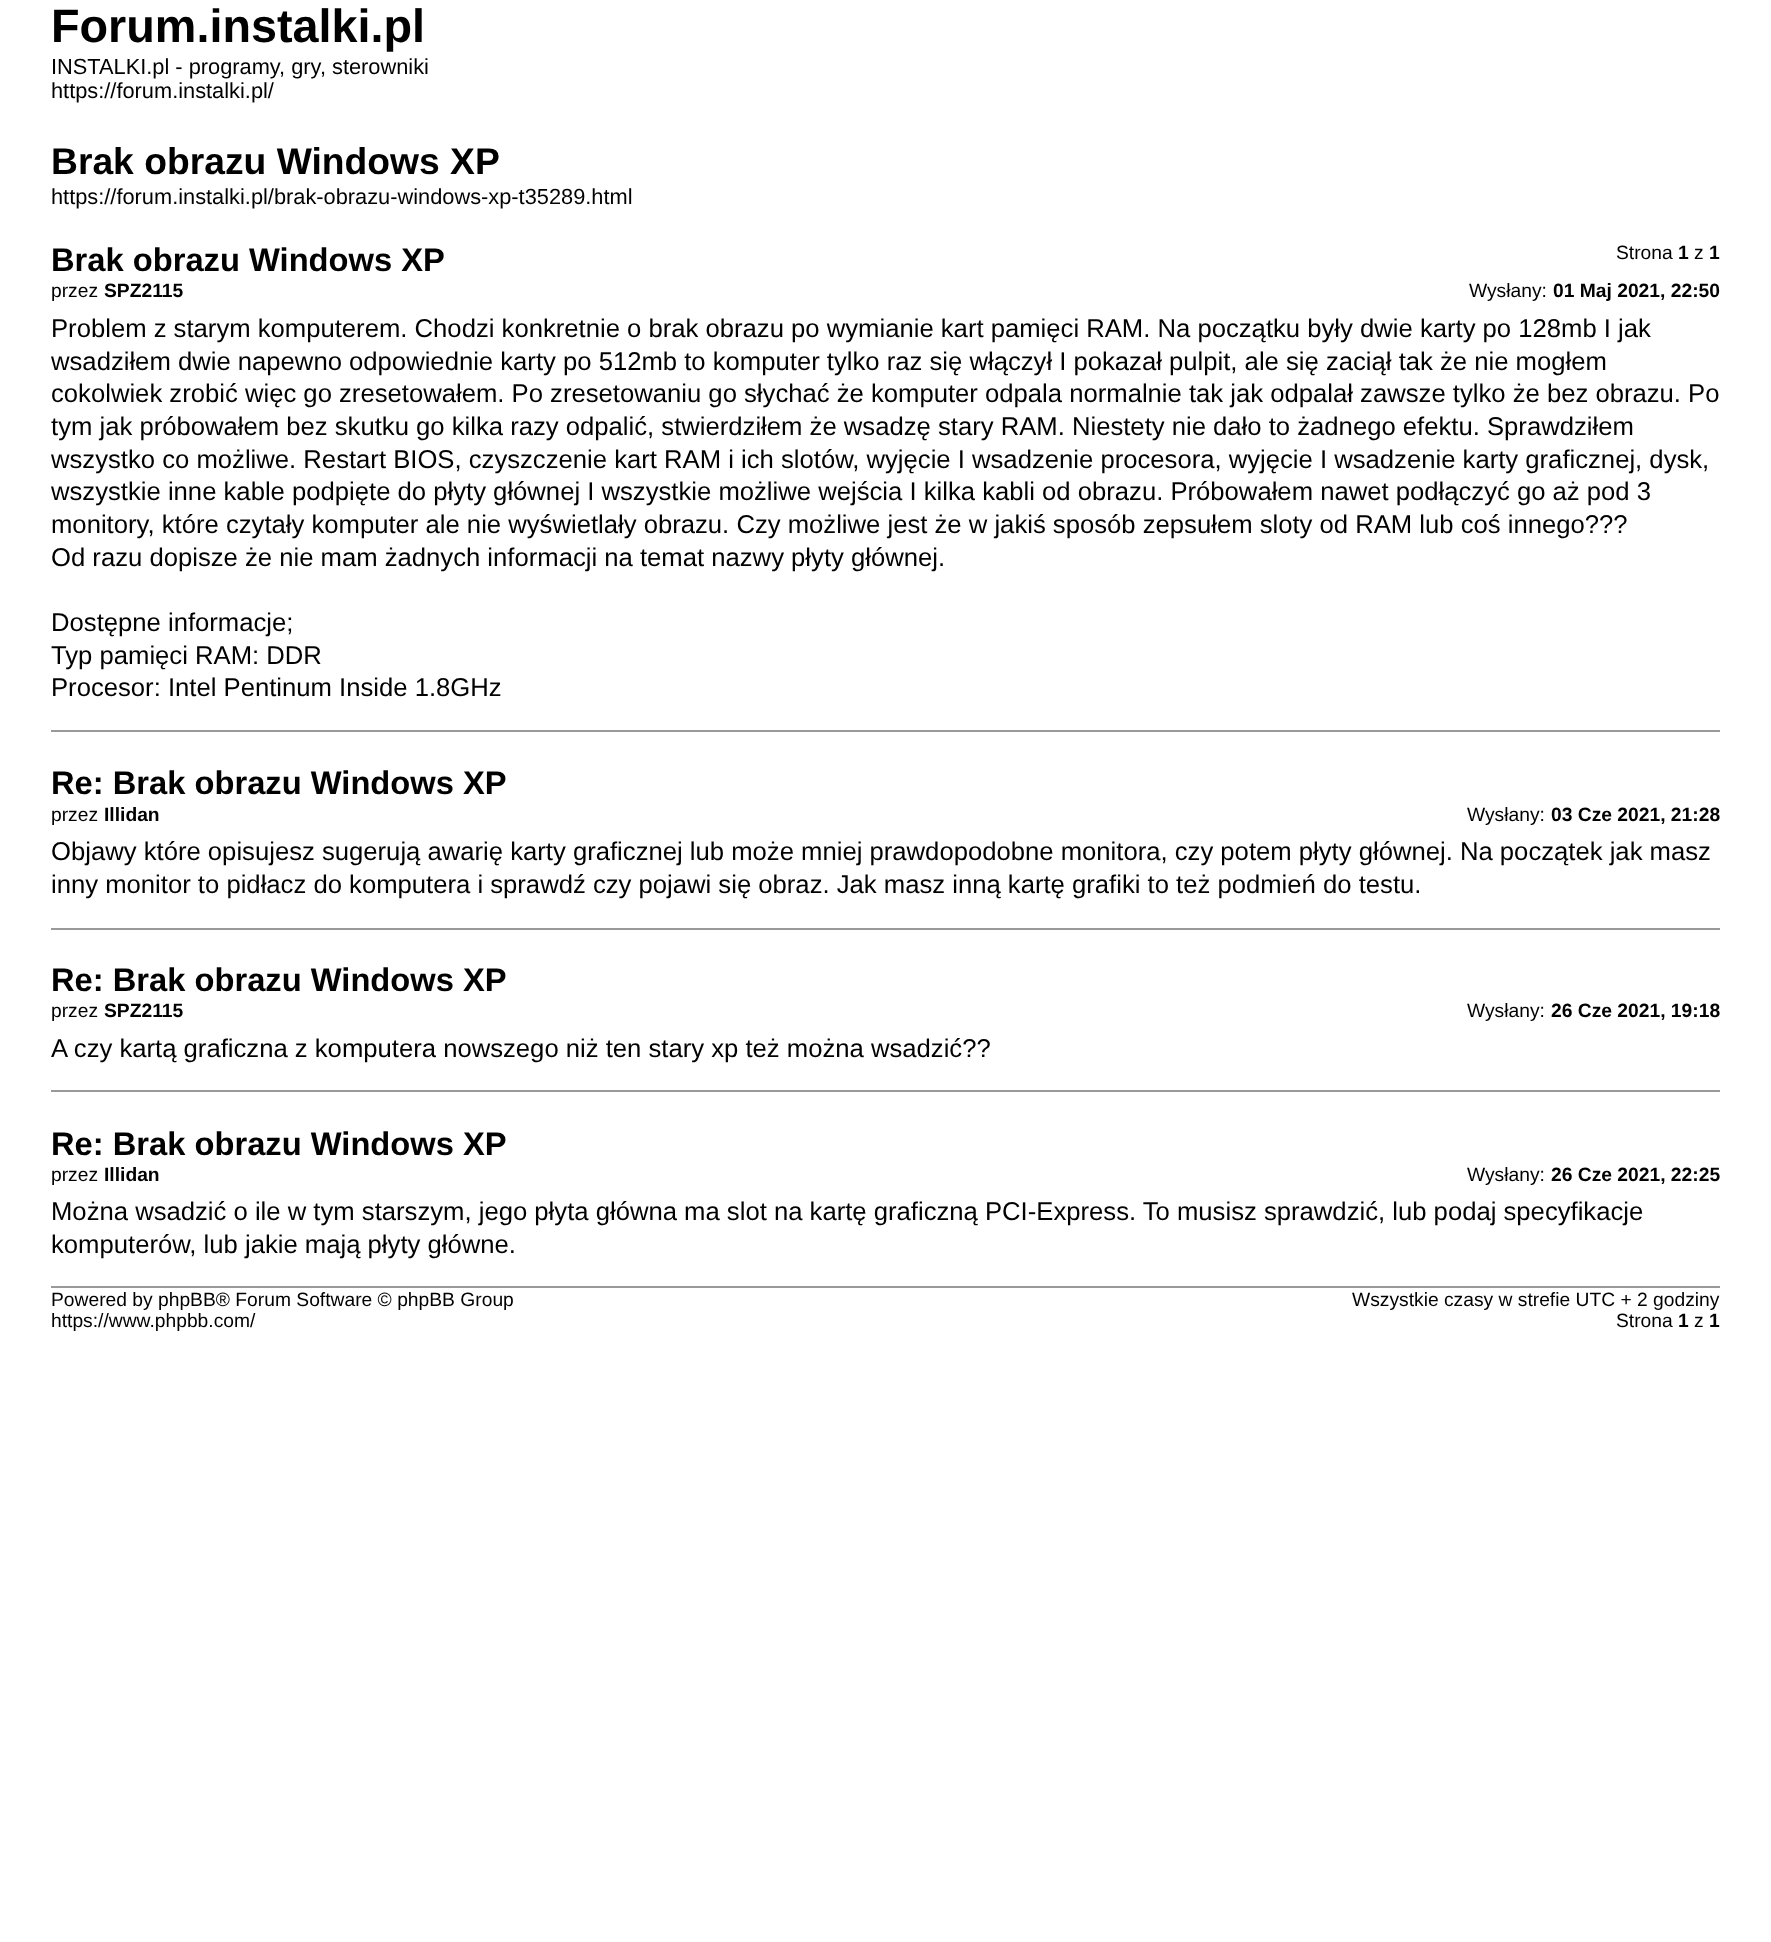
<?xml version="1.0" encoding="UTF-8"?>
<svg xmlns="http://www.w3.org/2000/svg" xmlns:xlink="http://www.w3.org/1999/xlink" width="1771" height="1942">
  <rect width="100%" height="100%" fill="#ffffff" />
  <rect x="51" y="730" width="1669" height="2" fill="#999999" />
  <rect x="51" y="928" width="1669" height="2" fill="#999999" />
  <rect x="51" y="1090" width="1669" height="2" fill="#999999" />
  <rect x="51" y="1286" width="1669" height="2" fill="#999999" />
  <text x="51" y="42" style="font-family: Liberation Sans; font-size: 46.75px; font-weight: bold; fill: #000000">Forum.instalki.pl</text>
  <text x="51" y="74" style="font-family: Liberation Sans; font-size: 21.8px; fill: #000000">INSTALKI.pl - programy, gry, sterowniki</text>
  <text x="51" y="98" style="font-family: Liberation Sans; font-size: 21.8px; fill: #000000">https://forum.instalki.pl/</text>
  <text x="51" y="174" style="font-family: Liberation Sans; font-size: 37.25px; font-weight: bold; fill: #000000">Brak obrazu Windows XP</text>
  <text x="51" y="204" style="font-family: Liberation Sans; font-size: 21.8px; fill: #000000">https://forum.instalki.pl/brak-obrazu-windows-xp-t35289.html</text>
  <text x="1616" y="259" style="font-family: Liberation Sans; font-size: 19.25px; fill: #000000">Strona</text>
  <text x="1678" y="259" style="font-family: Liberation Sans; font-size: 19.25px; font-weight: bold; fill: #000000">1</text>
  <text x="1694" y="259" style="font-family: Liberation Sans; font-size: 19.25px; fill: #000000">z</text>
  <text x="1709" y="259" style="font-family: Liberation Sans; font-size: 19.25px; font-weight: bold; fill: #000000">1</text>
  <text x="51" y="271" style="font-family: Liberation Sans; font-size: 32.7px; font-weight: bold; fill: #000000">Brak obrazu Windows XP</text>
  <text x="51" y="297" style="font-family: Liberation Sans; font-size: 19.25px; fill: #000000">przez</text>
  <text x="104" y="297" style="font-family: Liberation Sans; font-size: 19.25px; font-weight: bold; fill: #000000">SPZ2115</text>
  <text x="1469" y="297" style="font-family: Liberation Sans; font-size: 19.25px; fill: #000000">Wysłany:</text>
  <text x="1553" y="297" style="font-family: Liberation Sans; font-size: 19.25px; font-weight: bold; fill: #000000">01 Maj 2021, 22:50</text>
  <text x="51" y="337" style="font-family: Liberation Sans; font-size: 25.67px; fill: #000000">Problem z starym komputerem. Chodzi konkretnie o brak obrazu po wymianie kart pamięci RAM. Na początku były dwie karty po 128mb I jak</text>
  <text x="51" y="370" style="font-family: Liberation Sans; font-size: 25.67px; fill: #000000">wsadziłem dwie napewno odpowiednie karty po 512mb to komputer tylko raz się włączył I pokazał pulpit, ale się zaciął tak że nie mogłem</text>
  <text x="51" y="402" style="font-family: Liberation Sans; font-size: 25.67px; fill: #000000">cokolwiek zrobić więc go zresetowałem. Po zresetowaniu go słychać że komputer odpala normalnie tak jak odpalał zawsze tylko że bez obrazu. Po</text>
  <text x="51" y="435" style="font-family: Liberation Sans; font-size: 25.67px; fill: #000000">tym jak próbowałem bez skutku go kilka razy odpalić, stwierdziłem że wsadzę stary RAM. Niestety nie dało to żadnego efektu. Sprawdziłem</text>
  <text x="51" y="468" style="font-family: Liberation Sans; font-size: 25.67px; fill: #000000">wszystko co możliwe. Restart BIOS, czyszczenie kart RAM i ich slotów, wyjęcie I wsadzenie procesora, wyjęcie I wsadzenie karty graficznej, dysk,</text>
  <text x="51" y="500" style="font-family: Liberation Sans; font-size: 25.67px; fill: #000000">wszystkie inne kable podpięte do płyty głównej I wszystkie możliwe wejścia I kilka kabli od obrazu. Próbowałem nawet podłączyć go aż pod 3</text>
  <text x="51" y="533" style="font-family: Liberation Sans; font-size: 25.67px; fill: #000000">monitory, które czytały komputer ale nie wyświetlały obrazu. Czy możliwe jest że w jakiś sposób zepsułem sloty od RAM lub coś innego???</text>
  <text x="51" y="566" style="font-family: Liberation Sans; font-size: 25.67px; fill: #000000">Od razu dopisze że nie mam żadnych informacji na temat nazwy płyty głównej.</text>
  <text x="51" y="631" style="font-family: Liberation Sans; font-size: 25.67px; fill: #000000">Dostępne informacje;</text>
  <text x="51" y="664" style="font-family: Liberation Sans; font-size: 25.67px; fill: #000000">Typ pamięci RAM: DDR</text>
  <text x="51" y="696" style="font-family: Liberation Sans; font-size: 25.67px; fill: #000000">Procesor: Intel Pentinum Inside 1.8GHz</text>
  <text x="51" y="794" style="font-family: Liberation Sans; font-size: 32.7px; font-weight: bold; fill: #000000">Re: Brak obrazu Windows XP</text>
  <text x="51" y="821" style="font-family: Liberation Sans; font-size: 19.25px; fill: #000000">przez</text>
  <text x="104" y="821" style="font-family: Liberation Sans; font-size: 19.25px; font-weight: bold; fill: #000000">Illidan</text>
  <text x="1467" y="821" style="font-family: Liberation Sans; font-size: 19.25px; fill: #000000">Wysłany:</text>
  <text x="1551" y="821" style="font-family: Liberation Sans; font-size: 19.25px; font-weight: bold; fill: #000000">03 Cze 2021, 21:28</text>
  <text x="51" y="860" style="font-family: Liberation Sans; font-size: 25.67px; fill: #000000">Objawy które opisujesz sugerują awarię karty graficznej lub może mniej prawdopodobne monitora, czy potem płyty głównej. Na początek jak masz</text>
  <text x="51" y="893" style="font-family: Liberation Sans; font-size: 25.67px; fill: #000000">inny monitor to pidłacz do komputera i sprawdź czy pojawi się obraz. Jak masz inną kartę grafiki to też podmień do testu.</text>
  <text x="51" y="991" style="font-family: Liberation Sans; font-size: 32.7px; font-weight: bold; fill: #000000">Re: Brak obrazu Windows XP</text>
  <text x="51" y="1017" style="font-family: Liberation Sans; font-size: 19.25px; fill: #000000">przez</text>
  <text x="104" y="1017" style="font-family: Liberation Sans; font-size: 19.25px; font-weight: bold; fill: #000000">SPZ2115</text>
  <text x="1467" y="1017" style="font-family: Liberation Sans; font-size: 19.25px; fill: #000000">Wysłany:</text>
  <text x="1551" y="1017" style="font-family: Liberation Sans; font-size: 19.25px; font-weight: bold; fill: #000000">26 Cze 2021, 19:18</text>
  <text x="51" y="1057" style="font-family: Liberation Sans; font-size: 25.67px; fill: #000000">A czy kartą graficzna z komputera nowszego niż ten stary xp też można wsadzić??</text>
  <text x="51" y="1155" style="font-family: Liberation Sans; font-size: 32.7px; font-weight: bold; fill: #000000">Re: Brak obrazu Windows XP</text>
  <text x="51" y="1181" style="font-family: Liberation Sans; font-size: 19.25px; fill: #000000">przez</text>
  <text x="104" y="1181" style="font-family: Liberation Sans; font-size: 19.25px; font-weight: bold; fill: #000000">Illidan</text>
  <text x="1467" y="1181" style="font-family: Liberation Sans; font-size: 19.25px; fill: #000000">Wysłany:</text>
  <text x="1551" y="1181" style="font-family: Liberation Sans; font-size: 19.25px; font-weight: bold; fill: #000000">26 Cze 2021, 22:25</text>
  <text x="51" y="1220" style="font-family: Liberation Sans; font-size: 25.67px; fill: #000000">Można wsadzić o ile w tym starszym, jego płyta główna ma slot na kartę graficzną PCI-Express. To musisz sprawdzić, lub podaj specyfikacje</text>
  <text x="51" y="1253" style="font-family: Liberation Sans; font-size: 25.67px; fill: #000000">komputerów, lub jakie mają płyty główne.</text>
  <text x="51" y="1306" style="font-family: Liberation Sans; font-size: 19.25px; fill: #000000">Powered by phpBB® Forum Software © phpBB Group</text>
  <text x="51" y="1327" style="font-family: Liberation Sans; font-size: 19.25px; fill: #000000">https://www.phpbb.com/</text>
  <text x="1352" y="1306" style="font-family: Liberation Sans; font-size: 19.25px; fill: #000000">Wszystkie czasy w strefie UTC + 2 godziny</text>
  <text x="1616" y="1327" style="font-family: Liberation Sans; font-size: 19.25px; fill: #000000">Strona</text>
  <text x="1678" y="1327" style="font-family: Liberation Sans; font-size: 19.25px; font-weight: bold; fill: #000000">1</text>
  <text x="1694" y="1327" style="font-family: Liberation Sans; font-size: 19.25px; fill: #000000">z</text>
  <text x="1709" y="1327" style="font-family: Liberation Sans; font-size: 19.25px; font-weight: bold; fill: #000000">1</text>
</svg>
